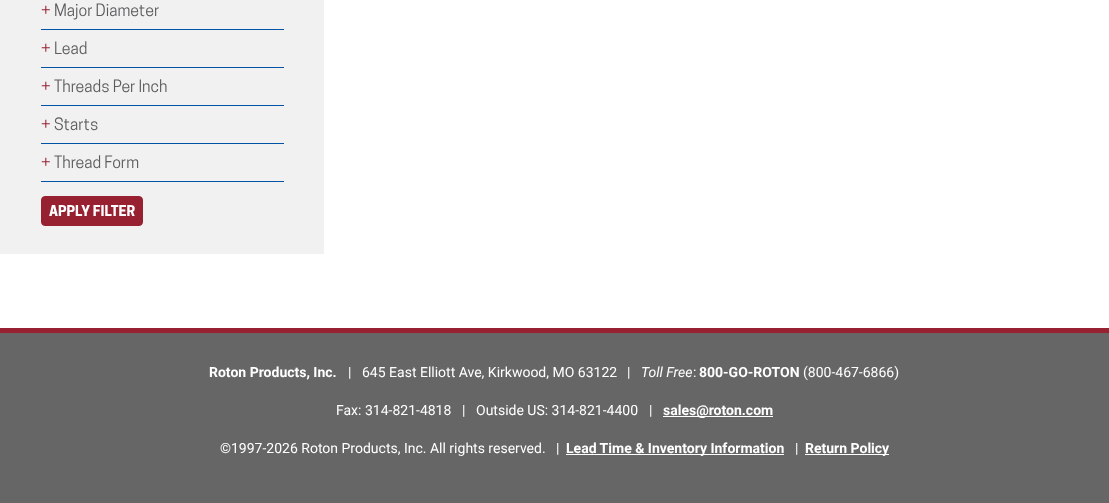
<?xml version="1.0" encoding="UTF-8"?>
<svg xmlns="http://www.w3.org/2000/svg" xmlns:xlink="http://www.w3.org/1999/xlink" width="1109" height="503">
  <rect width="100%" height="100%" fill="#666666" />
  <rect width="1109" height="328" fill="#ffffff" />
  <rect width="324" height="254" fill="#f1f1f2" />
  <rect x="41" y="29" width="243" height="1" fill="#0054a5" />
  <rect x="41" y="67" width="243" height="1" fill="#0054a5" />
  <rect x="41" y="105" width="243" height="1" fill="#0054a5" />
  <rect x="41" y="143" width="243" height="1" fill="#0054a5" />
  <rect x="41" y="181" width="243" height="1" fill="#0054a5" />
  <rect x="41.5" y="196.5" width="101" height="29" rx="3.5" fill="#982131" stroke="#982131" />
  <rect y="328" width="1109" height="5" fill="#982131" />
  <rect x="663" y="416" width="110" height="1" fill="#ffffff" />
  <rect x="566" y="454" width="218" height="1" fill="#ffffff" />
  <rect x="805" y="454" width="84" height="1" fill="#ffffff" />
  <text x="41" y="16" style="font-family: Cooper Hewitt; font-size: 16px; fill: #982131">+</text>
  <text x="54" y="16" style="font-family: Cooper Hewitt; font-size: 16px; fill: #5c5c5d">Major Diameter</text>
  <text x="41" y="54" style="font-family: Cooper Hewitt; font-size: 16px; fill: #982131">+</text>
  <text x="54" y="54" style="font-family: Cooper Hewitt; font-size: 16px; fill: #5c5c5d">Lead</text>
  <text x="41" y="92" style="font-family: Cooper Hewitt; font-size: 16px; fill: #982131">+</text>
  <text x="54" y="92" style="font-family: Cooper Hewitt; font-size: 16px; fill: #5c5c5d">Threads Per Inch</text>
  <text x="41" y="130" style="font-family: Cooper Hewitt; font-size: 16px; fill: #982131">+</text>
  <text x="54" y="130" style="font-family: Cooper Hewitt; font-size: 16px; fill: #5c5c5d">Starts</text>
  <text x="41" y="168" style="font-family: Cooper Hewitt; font-size: 16px; fill: #982131">+</text>
  <text x="54" y="168" style="font-family: Cooper Hewitt; font-size: 16px; fill: #5c5c5d">Thread Form</text>
  <text x="49" y="216" style="font-family: Cooper Hewitt; font-size: 14px; font-weight: bold; fill: #ffffff">APPLY FILTER</text>
  <text x="209" y="377" style="font-family: Roboto; font-size: 14px; font-weight: bold; fill: #ffffff">Roton Products, Inc.</text>
  <text x="348" y="377" style="font-family: Roboto; font-size: 14px; fill: #ffffff">|</text>
  <text x="362" y="377" style="font-family: Roboto; font-size: 14px; fill: #ffffff">645 East Elliott Ave, Kirkwood, MO 63122</text>
  <text x="627" y="377" style="font-family: Roboto; font-size: 14px; fill: #ffffff">|</text>
  <text x="641" y="377" style="font-family: Roboto; font-size: 14px; font-style: italic; fill: #ffffff">Toll Free</text>
  <text x="693" y="377" style="font-family: Roboto; font-size: 14px; fill: #ffffff">:</text>
  <text x="699" y="377" style="font-family: Roboto; font-size: 14px; font-weight: bold; fill: #ffffff">800-GO-ROTON</text>
  <text x="803" y="377" style="font-family: Roboto; font-size: 14px; fill: #ffffff">(800-467-6866)</text>
  <text x="336" y="415" style="font-family: Roboto; font-size: 14px; fill: #ffffff">Fax: 314-821-4818</text>
  <text x="462" y="415" style="font-family: Roboto; font-size: 14px; fill: #ffffff">|</text>
  <text x="476" y="415" style="font-family: Roboto; font-size: 14px; fill: #ffffff">Outside US: 314-821-4400</text>
  <text x="649" y="415" style="font-family: Roboto; font-size: 14px; fill: #ffffff">|</text>
  <text x="663" y="415" style="font-family: Roboto; font-size: 14px; font-weight: bold; fill: #ffffff">sales@roton.com</text>
  <text x="220" y="453" style="font-family: Roboto; font-size: 14px; fill: #ffffff">©1997-2026 Roton Products, Inc. All rights reserved.</text>
  <text x="556" y="453" style="font-family: Roboto; font-size: 14px; fill: #ffffff">|</text>
  <text x="566" y="453" style="font-family: Roboto; font-size: 14px; font-weight: bold; fill: #ffffff">Lead Time &amp; Inventory Information</text>
  <text x="795" y="453" style="font-family: Roboto; font-size: 14px; fill: #ffffff">|</text>
  <text x="805" y="453" style="font-family: Roboto; font-size: 14px; font-weight: bold; fill: #ffffff">Return Policy</text>
</svg>
